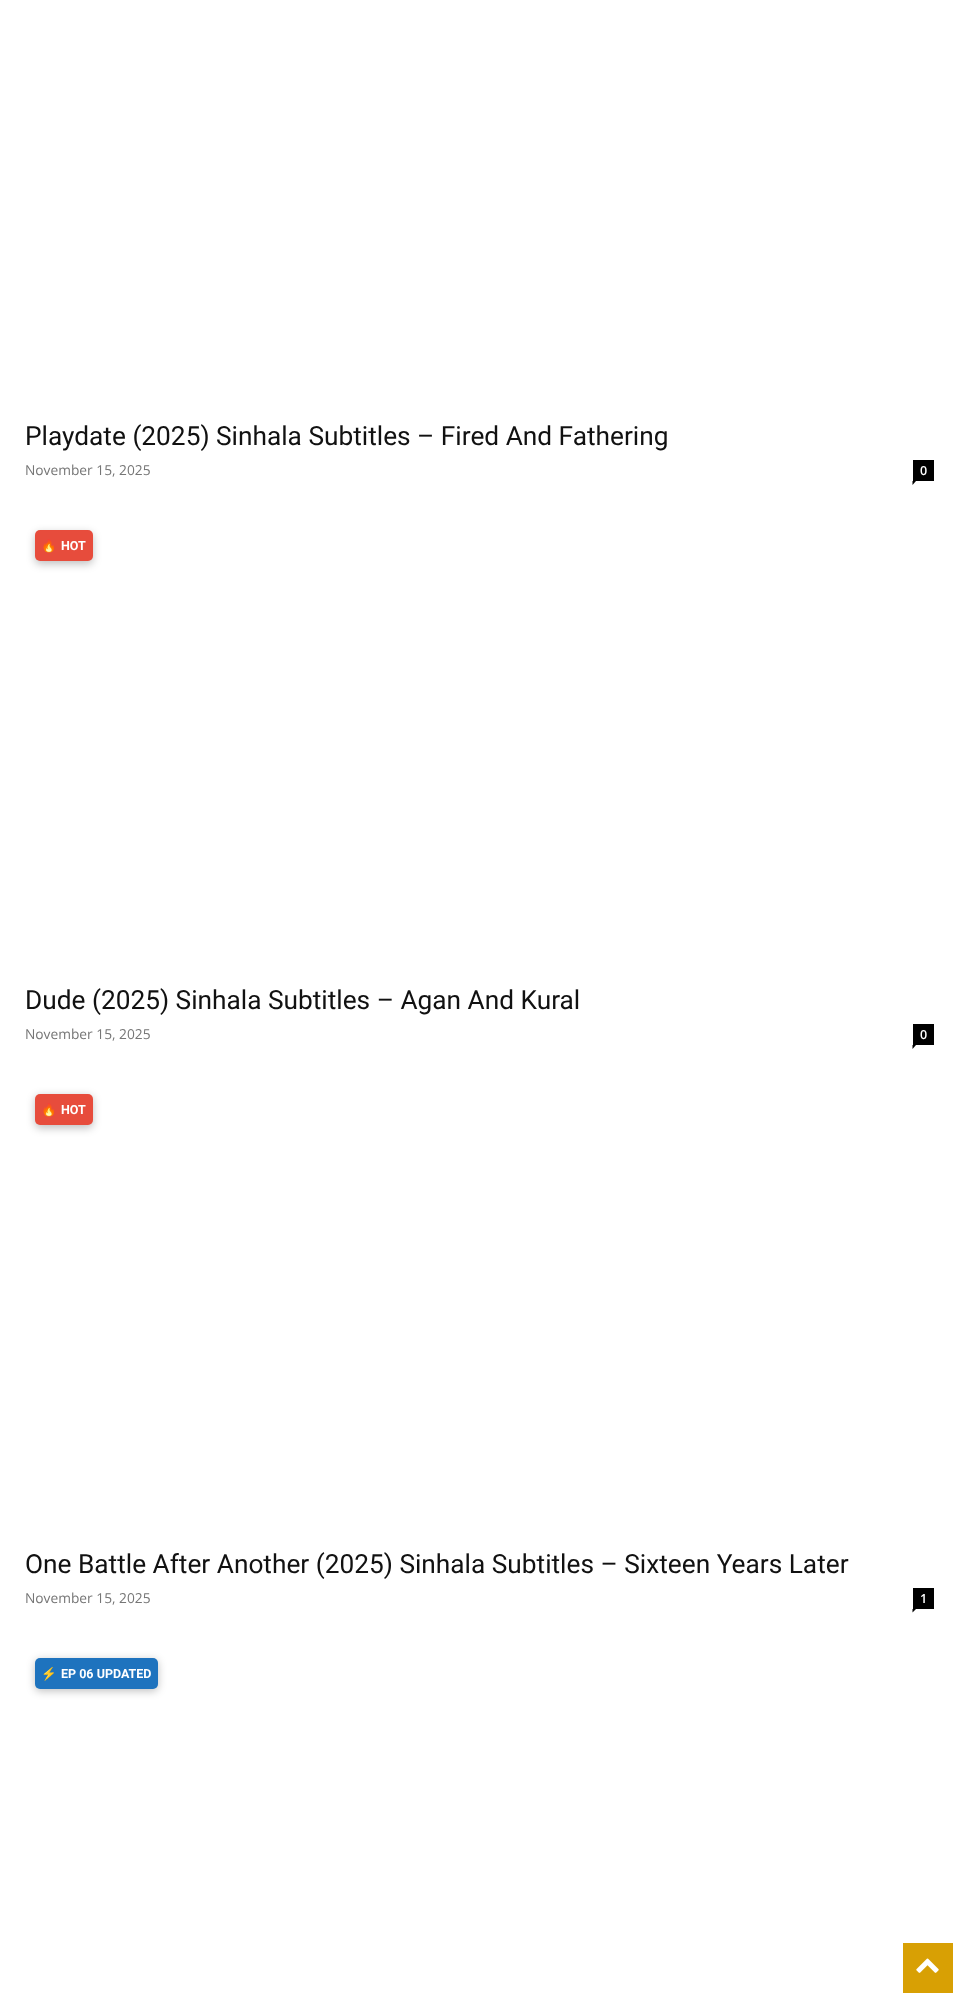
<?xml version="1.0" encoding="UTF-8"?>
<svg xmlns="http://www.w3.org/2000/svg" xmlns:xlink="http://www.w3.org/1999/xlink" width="958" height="1997">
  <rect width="100%" height="100%" fill="#ffffff" />
  <rect x="913" y="460" width="21" height="21" fill="#000000" />
  <path d="M 912.5 481 h 3.5 l -3.5 4 z" fill="#000000" />
  <rect x="35" y="533" width="58" height="31" rx="5" fill="#000000" fill-opacity="0.25" filter="blur(4px)" />
  <rect x="35" y="530" width="58" height="31" rx="5" fill="#e74c3c" />
  <rect x="913" y="1024" width="21" height="21" fill="#000000" />
  <path d="M 912.5 1045 h 3.5 l -3.5 4 z" fill="#000000" />
  <rect x="35" y="1096" width="58" height="32" rx="5" fill="#000000" fill-opacity="0.25" filter="blur(4px)" />
  <rect x="35" y="1094" width="58" height="31" rx="5" fill="#e74c3c" />
  <rect x="913" y="1588" width="21" height="21" fill="#000000" />
  <path d="M 912.5 1609 h 3.5 l -3.5 3.5 z" fill="#000000" />
  <rect x="35" y="1660" width="123" height="31" rx="5" fill="#000000" fill-opacity="0.25" filter="blur(4px)" />
  <rect x="35" y="1658" width="123" height="31" rx="5" fill="#1e73be" />
  <rect x="903" y="1943" width="50" height="50" fill="#d8a004" />
  <image x="916" y="1958" width="23" height="15" xlink:href="image1.png" />
  <text x="25" y="445" style="font-family: Roboto; font-size: 26.25px; fill: #111111">Playdate (2025) Sinhala Subtitles – Fired And Fathering</text>
  <text x="25" y="475" style="font-family: Open Sans; font-size: 13.75px; fill: #767676">November 15, 2025</text>
  <text x="920" y="475" style="font-family: Open Sans; font-size: 12.5px; font-weight: 600; fill: #ffffff">0</text>
  <text x="41" y="550" style="font-family: Noto Color Emoji; font-size: 12.5px; font-weight: bold; fill: #ffffff">🔥</text>
  <text x="61" y="550" style="font-family: Roboto; font-size: 12.5px; font-weight: bold; fill: #ffffff">HOT</text>
  <text x="25" y="1009" style="font-family: Roboto; font-size: 26.25px; fill: #111111">Dude (2025) Sinhala Subtitles – Agan And Kural</text>
  <text x="25" y="1039" style="font-family: Open Sans; font-size: 13.75px; fill: #767676">November 15, 2025</text>
  <text x="920" y="1039" style="font-family: Open Sans; font-size: 12.5px; font-weight: 600; fill: #ffffff">0</text>
  <text x="41" y="1114" style="font-family: Noto Color Emoji; font-size: 12.5px; font-weight: bold; fill: #ffffff">🔥</text>
  <text x="61" y="1114" style="font-family: Roboto; font-size: 12.5px; font-weight: bold; fill: #ffffff">HOT</text>
  <text x="25" y="1573" style="font-family: Roboto; font-size: 26.25px; fill: #111111">One Battle After Another (2025) Sinhala Subtitles – Sixteen Years Later</text>
  <text x="25" y="1603" style="font-family: Open Sans; font-size: 13.75px; fill: #767676">November 15, 2025</text>
  <text x="920" y="1603" style="font-family: Open Sans; font-size: 12.5px; font-weight: 600; fill: #ffffff">1</text>
  <text x="41" y="1678" style="font-family: Noto Color Emoji; font-size: 12.5px; font-weight: bold; fill: #ffffff">⚡</text>
  <text x="61" y="1678" style="font-family: Roboto; font-size: 12.5px; font-weight: bold; fill: #ffffff">EP 06 UPDATED</text>
</svg>
